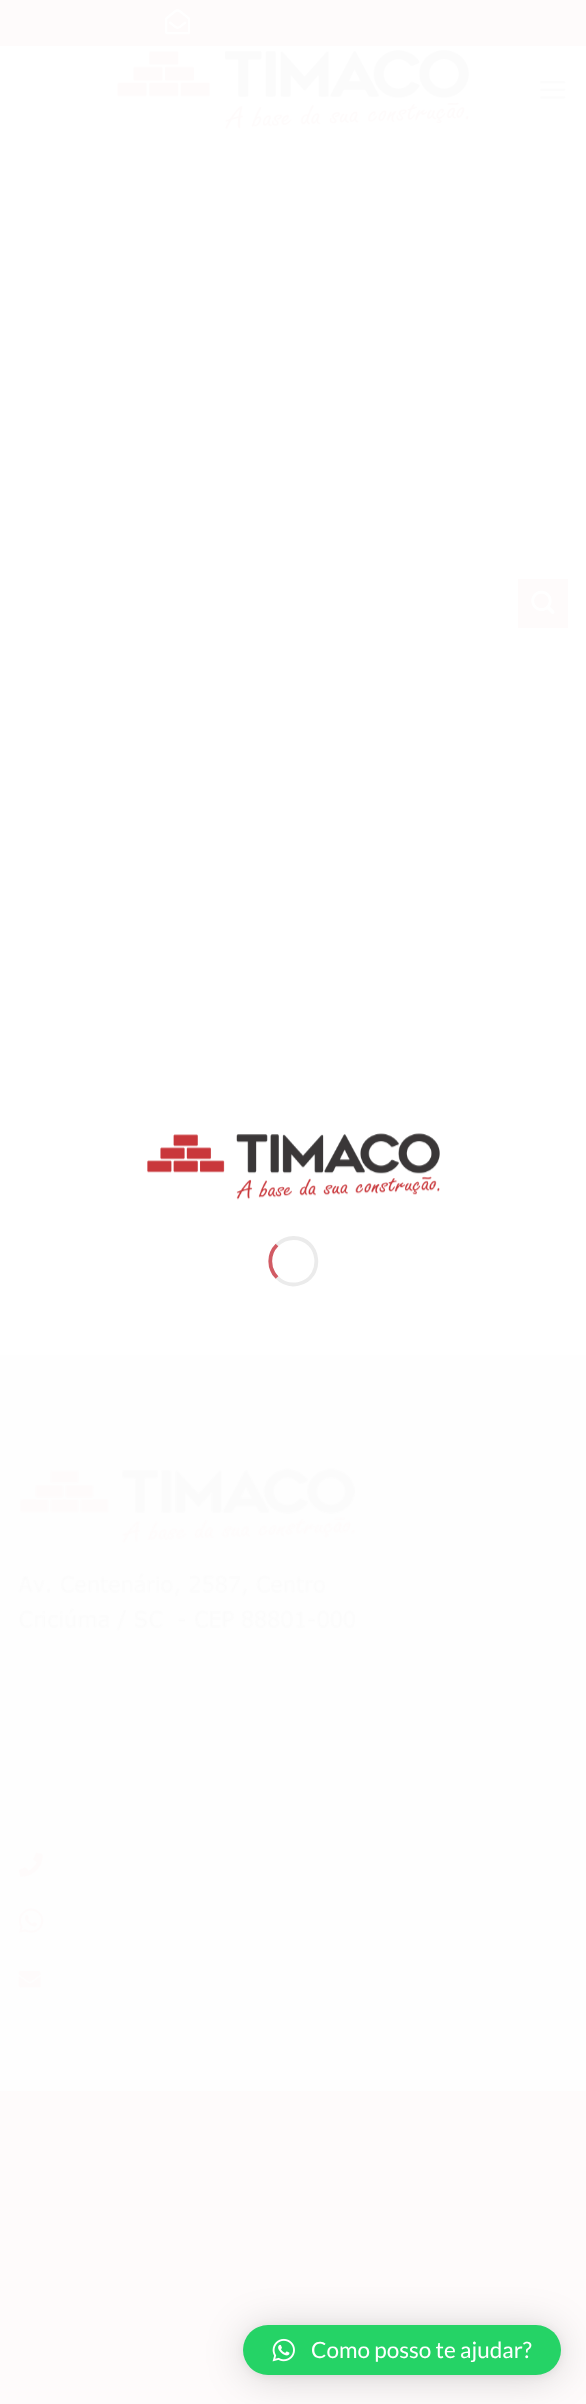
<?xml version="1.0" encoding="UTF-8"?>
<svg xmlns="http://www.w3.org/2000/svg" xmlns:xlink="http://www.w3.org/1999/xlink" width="586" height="2404">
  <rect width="100%" height="100%" fill="#fefbfb" />
  <rect y="46" width="586" height="1309" fill="#ffffff" />
  <image x="165" y="9" width="26" height="26" xlink:href="image1.png" />
  <image x="117" y="50" width="352" height="79" xlink:href="image2.png" />
  <image x="540" y="81" width="26" height="18" xlink:href="image3.png" />
  <rect x="518.5" y="579.5" width="49" height="48" fill="#fefbfb" stroke="#fefbfb" />
  <image x="531" y="590" width="24" height="24" xlink:href="image4.png" />
  <image x="147" y="1133" width="293" height="67" xlink:href="image5.png" />
  <path d="M 277 1245 c 4.5 -4.5 10.5 -7 16.5 -7 c 27.5 0 31.5 40.5 4.5 46 c -7.5 1.5 -15.5 -1 -21 -6.5" fill="none" stroke="#ebebeb" stroke-width="3.8" />
  <path d="M 277 1277.5 c -9 -9 -9 -23.5 0 -32.5" fill="none" stroke="#d15b64" stroke-width="3.8" />
  <rect y="1355" width="586" height="736" fill="#fefefe" />
  <image x="18" y="1468" width="337" height="164" xlink:href="image6.png" />
  <image x="18" y="1852" width="25" height="25" xlink:href="image7.png" />
  <image x="18" y="1908" width="26" height="25" xlink:href="image8.png" />
  <image x="18" y="1971" width="23" height="17" xlink:href="image9.png" />
  <rect x="243" y="2328" width="318" height="50" rx="25" fill="#000000" fill-opacity="0.16" filter="blur(20px)" />
  <rect x="243" y="2326" width="318" height="50" rx="25" fill="#000000" fill-opacity="0.06" filter="blur(4px)" />
  <rect x="243" y="2325" width="318" height="50" rx="25" fill="#25d366" />
  <image x="272" y="2338" width="23" height="24" xlink:href="image10.png" />
  <text x="311" y="2358" style="font-family: Lato; font-size: 22.5px; fill: #ffffff">Como posso te ajudar?</text>
</svg>
